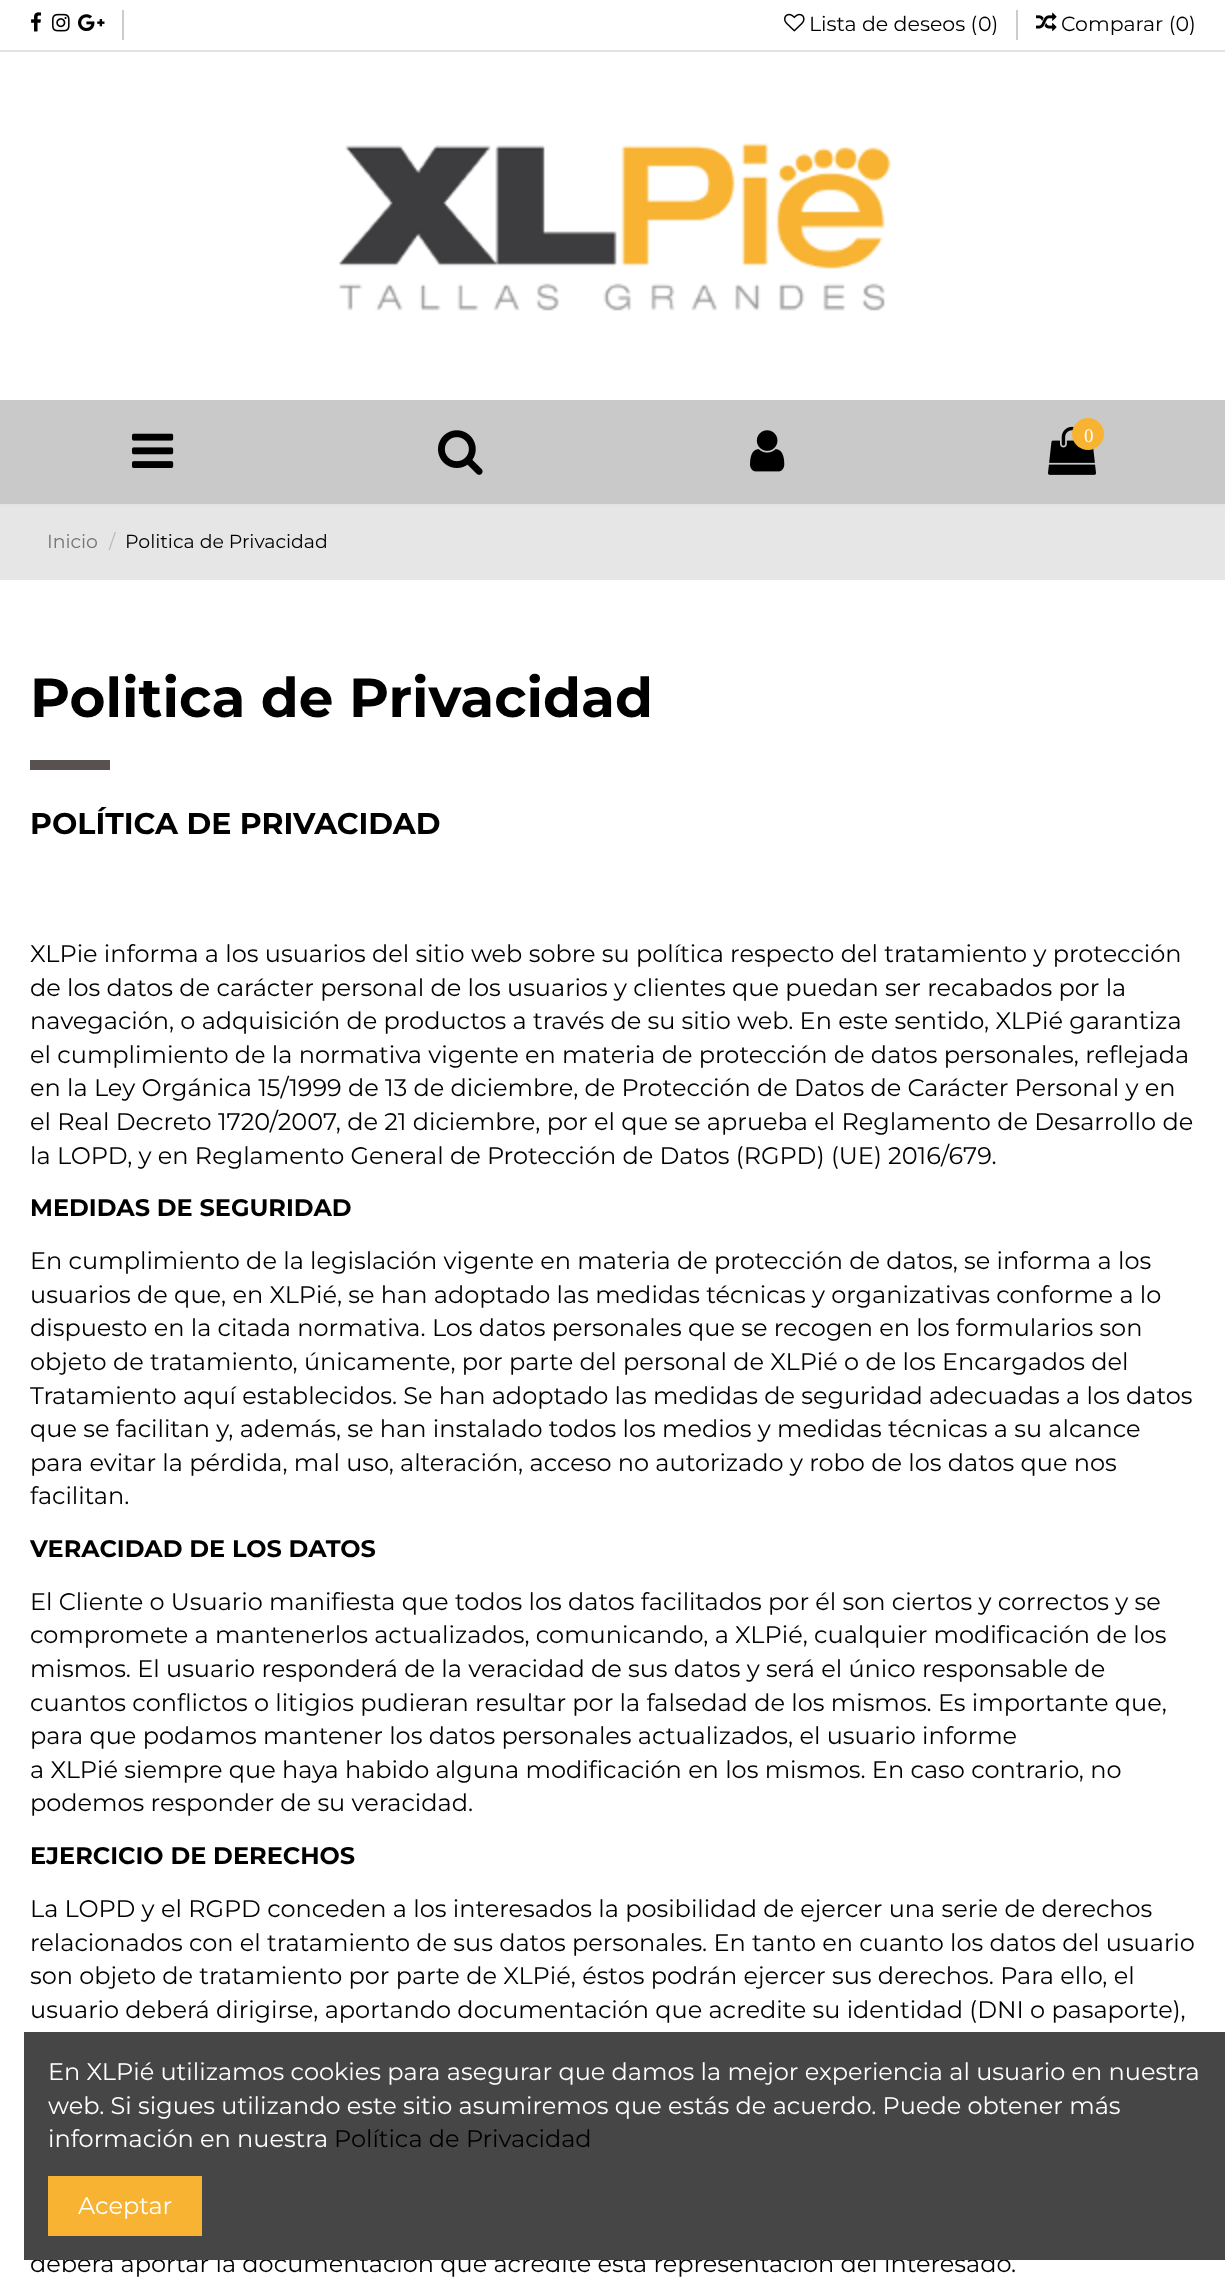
<?xml version="1.0" encoding="UTF-8"?>
<svg xmlns="http://www.w3.org/2000/svg" xmlns:xlink="http://www.w3.org/1999/xlink" width="1225" height="2283">
  <rect width="100%" height="100%" fill="#ffffff" />
  <rect y="50" width="1225" height="2" fill="#e3e3e3" />
  <image x="31" y="12" width="10" height="20" xlink:href="image1.png" />
  <image x="52" y="13" width="18" height="19" xlink:href="image2.png" />
  <image x="78" y="14" width="27" height="18" xlink:href="image3.png" />
  <rect x="122" y="10" width="2" height="30" fill="#cccccc" />
  <image x="784" y="13" width="21" height="19" xlink:href="image4.png" />
  <rect x="1016" y="10" width="2" height="30" fill="#cccccc" />
  <image x="1036" y="12" width="21" height="20" xlink:href="image5.png" />
  <rect y="504" width="1225" height="2" fill="#e3e3e3" />
  <image x="338" y="143" width="553" height="168" xlink:href="image6.png" />
  <rect y="400" width="1225" height="104" fill="#c9c9c9" />
  <image x="132" y="433" width="42" height="35" xlink:href="image7.png" />
  <image x="438" y="430" width="45" height="45" xlink:href="image8.png" />
  <image x="750" y="430" width="35" height="42" xlink:href="image9.png" />
  <image x="1048" y="426" width="48" height="49" xlink:href="image10.png" />
  <circle cx="1088" cy="434" r="16" fill="#f8b332" />
  <rect y="506" width="1225" height="74" fill="#e6e6e6" />
  <rect x="30" y="760" width="80" height="10" fill="#595050" />
  <text x="809" y="31" style="font-family: Montserrat; font-size: 20.5px; fill: #000000">Lista de deseos (</text>
  <text x="978" y="31" style="font-family: Montserrat; font-size: 20.5px; fill: #000000">0)</text>
  <text x="1061" y="31" style="font-family: Montserrat; font-size: 20.5px; fill: #000000">Comparar (0)</text>
  <text x="1084" y="442" style="font-family: Liberation Serif; font-size: 19px; fill: #ffffff">0</text>
  <text x="47" y="548" style="font-family: Montserrat; font-size: 18.9px; fill: #757575">Inicio</text>
  <text x="109" y="548" style="font-family: Montserrat; font-size: 18.9px; fill: #b9b9b9">/</text>
  <text x="125" y="548" style="font-family: Montserrat; font-size: 18.9px; fill: #000000">Politica de Privacidad</text>
  <text x="30" y="717" style="font-family: Montserrat; font-size: 54.9px; font-weight: bold; fill: #000000">Politica de Privacidad</text>
  <text x="30" y="834" style="font-family: Montserrat; font-size: 30px; font-weight: bold; fill: #000000">POLÍTICA DE PRIVACIDAD</text>
  <text x="30" y="962" style="font-family: Montserrat; font-size: 24px; fill: #000000">XLPie informa a los usuarios del sitio web sobre su política respecto del tratamiento y protección</text>
  <text x="30" y="996" style="font-family: Montserrat; font-size: 24px; fill: #000000">de los datos de carácter personal de los usuarios y clientes que puedan ser recabados por la</text>
  <text x="30" y="1029" style="font-family: Montserrat; font-size: 24px; fill: #000000">navegación, o adquisición de productos a través de su sitio web. En este sentido, XLPié garantiza</text>
  <text x="30" y="1063" style="font-family: Montserrat; font-size: 24px; fill: #000000">el cumplimiento de la normativa vigente en materia de protección de datos personales, reflejada</text>
  <text x="30" y="1096" style="font-family: Montserrat; font-size: 24px; fill: #000000">en la Ley Orgánica 15/1999 de 13 de diciembre, de Protección de Datos de Carácter Personal y en</text>
  <text x="30" y="1130" style="font-family: Montserrat; font-size: 24px; fill: #000000">el Real Decreto 1720/2007, de 21 diciembre, por el que se aprueba el Reglamento de Desarrollo de</text>
  <text x="30" y="1164" style="font-family: Montserrat; font-size: 24px; fill: #000000">la LOPD, y en Reglamento General de Protección de Datos (RGPD) (UE) 2016/679.</text>
  <text x="30" y="1216" style="font-family: Montserrat; font-size: 24px; font-weight: bold; fill: #000000">MEDIDAS DE SEGURIDAD</text>
  <text x="30" y="1269" style="font-family: Montserrat; font-size: 24px; fill: #000000">En cumplimiento de la legislación vigente en materia de protección de datos, se informa a los</text>
  <text x="30" y="1303" style="font-family: Montserrat; font-size: 24px; fill: #000000">usuarios de que, en XLPié, se han adoptado las medidas técnicas y organizativas conforme a lo</text>
  <text x="30" y="1336" style="font-family: Montserrat; font-size: 24px; fill: #000000">dispuesto en la citada normativa. Los datos personales que se recogen en los formularios son</text>
  <text x="30" y="1370" style="font-family: Montserrat; font-size: 24px; fill: #000000">objeto de tratamiento, únicamente, por parte del personal de XLPié o de los Encargados del</text>
  <text x="30" y="1404" style="font-family: Montserrat; font-size: 24px; fill: #000000">Tratamiento aquí establecidos. Se han adoptado las medidas de seguridad adecuadas a los datos</text>
  <text x="30" y="1437" style="font-family: Montserrat; font-size: 24px; fill: #000000">que se facilitan y, además, se han instalado todos los medios y medidas técnicas a su alcance</text>
  <text x="30" y="1471" style="font-family: Montserrat; font-size: 24px; fill: #000000">para evitar la pérdida, mal uso, alteración, acceso no autorizado y robo de los datos que nos</text>
  <text x="30" y="1504" style="font-family: Montserrat; font-size: 24px; fill: #000000">facilitan.</text>
  <text x="30" y="1557" style="font-family: Montserrat; font-size: 24px; font-weight: bold; fill: #000000">VERACIDAD DE LOS DATOS</text>
  <text x="30" y="1610" style="font-family: Montserrat; font-size: 24px; fill: #000000">El Cliente o Usuario manifiesta que todos los datos facilitados por él son ciertos y correctos y se</text>
  <text x="30" y="1643" style="font-family: Montserrat; font-size: 24px; fill: #000000">compromete a mantenerlos actualizados, comunicando, a XLPié, cualquier modificación de los</text>
  <text x="30" y="1677" style="font-family: Montserrat; font-size: 24px; fill: #000000">mismos. El usuario responderá de la veracidad de sus datos y será el único responsable de</text>
  <text x="30" y="1711" style="font-family: Montserrat; font-size: 24px; fill: #000000">cuantos conflictos o litigios pudieran resultar por la falsedad de los mismos. Es importante que,</text>
  <text x="30" y="1744" style="font-family: Montserrat; font-size: 24px; fill: #000000">para que podamos mantener los datos personales actualizados, el usuario informe</text>
  <text x="30" y="1778" style="font-family: Montserrat; font-size: 24px; fill: #000000">a XLPié siempre que haya habido alguna modificación en los mismos. En caso contrario, no</text>
  <text x="30" y="1811" style="font-family: Montserrat; font-size: 24px; fill: #000000">podemos responder de su veracidad.</text>
  <text x="30" y="1864" style="font-family: Montserrat; font-size: 24px; font-weight: bold; fill: #000000">EJERCICIO DE DERECHOS</text>
  <text x="30" y="1917" style="font-family: Montserrat; font-size: 24px; fill: #000000">La LOPD y el RGPD conceden a los interesados la posibilidad de ejercer una serie de derechos</text>
  <text x="30" y="1951" style="font-family: Montserrat; font-size: 24px; fill: #000000">relacionados con el tratamiento de sus datos personales. En tanto en cuanto los datos del usuario</text>
  <text x="30" y="1984" style="font-family: Montserrat; font-size: 24px; fill: #000000">son objeto de tratamiento por parte de XLPié, éstos podrán ejercer sus derechos. Para ello, el</text>
  <text x="30" y="2018" style="font-family: Montserrat; font-size: 24px; fill: #000000">usuario deberá dirigirse, aportando documentación que acredite su identidad (DNI o pasaporte),</text>
  <text x="30" y="2272" style="font-family: Montserrat; font-size: 24px; fill: #000000">deberá aportar la documentación que acredite esta representación del interesado.</text>
  <rect x="24" y="2032" width="1201" height="228" fill="#464646" />
  <text x="48" y="2080" style="font-family: Montserrat; font-size: 24px; fill: #ffffff">En XLPié utilizamos cookies para asegurar que damos la mejor experiencia al usuario en nuestra</text>
  <text x="48" y="2114" style="font-family: Montserrat; font-size: 24px; fill: #ffffff">web. Si sigues utilizando este sitio asumiremos que estás de acuerdo. Puede obtener más</text>
  <text x="48" y="2147" style="font-family: Montserrat; font-size: 24px; fill: #ffffff">información en nuestra</text>
  <text x="334" y="2147" style="font-family: Montserrat; font-size: 24px; fill: #000000">Política de Privacidad</text>
  <rect x="48" y="2176" width="154" height="60" fill="#f8b332" />
  <text x="78" y="2214" style="font-family: Montserrat; font-size: 24px; fill: #ffffff">Aceptar</text>
</svg>
